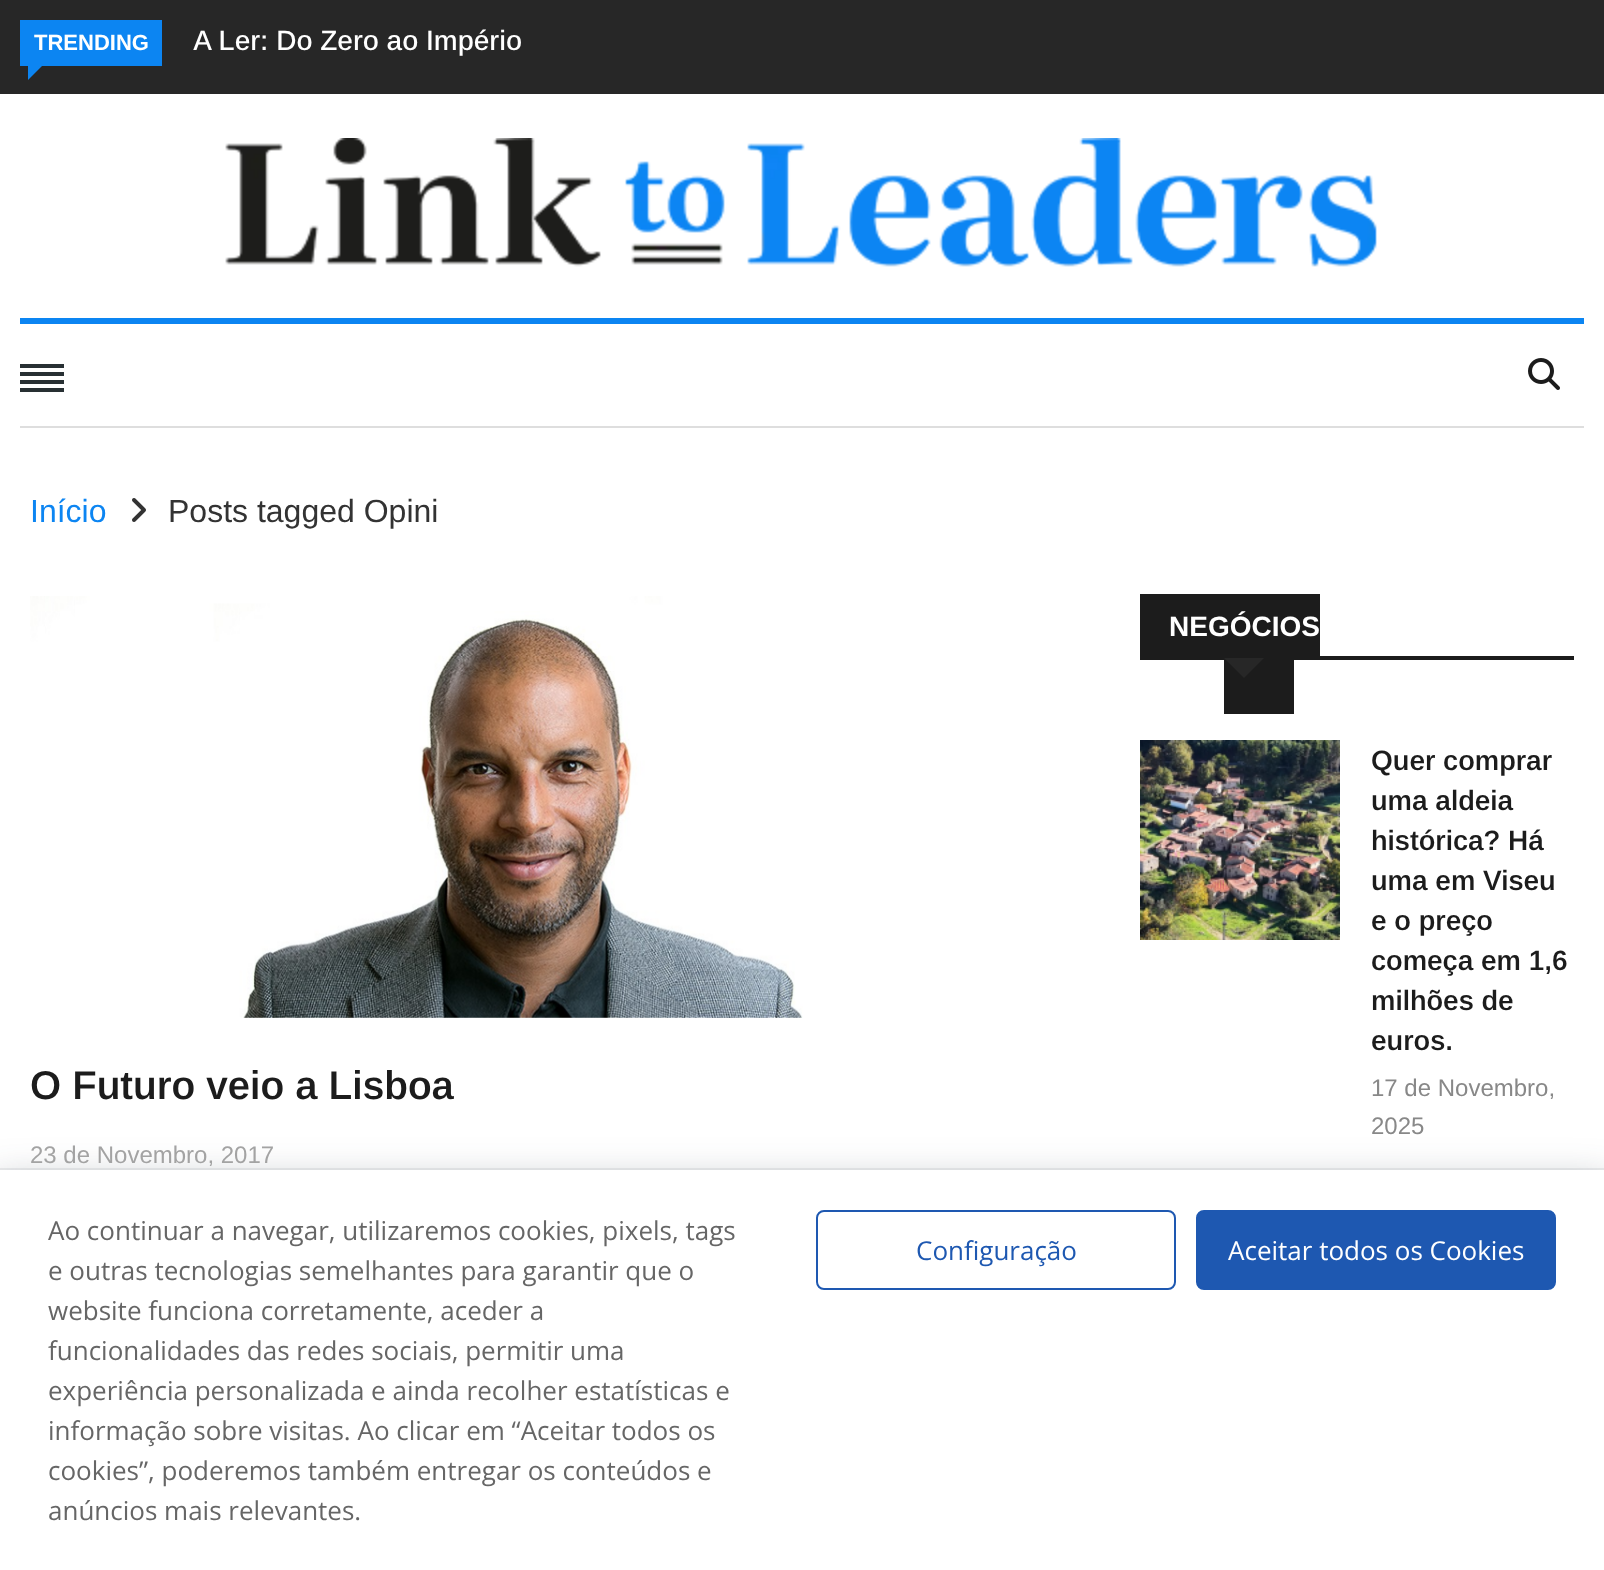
<?xml version="1.0" encoding="UTF-8"?>
<svg xmlns="http://www.w3.org/2000/svg" xmlns:xlink="http://www.w3.org/1999/xlink" width="1604" height="1570">
  <rect width="100%" height="100%" fill="#ffffff" />
  <rect width="1604" height="94" fill="#272727" />
  <rect x="20" y="20" width="142" height="46" fill="#0c85f2" />
  <path d="M 28 66 h 14 l -14 14 z" fill="#0c85f2" />
  <image x="225" y="138" width="1152" height="129" xlink:href="image1.png" />
  <rect x="20" y="318" width="1564" height="6" fill="#0c85f2" />
  <rect x="20" y="426" width="1564" height="2" fill="#dedede" />
  <rect x="20" y="364" width="44" height="4" fill="#283033" />
  <rect x="20" y="372" width="44" height="4" fill="#283033" />
  <rect x="20" y="380" width="44" height="4" fill="#283033" />
  <rect x="20" y="388" width="44" height="4" fill="#283033" />
  <image x="1528" y="358" width="32" height="32" xlink:href="image2.png" />
  <image x="132" y="498" width="14" height="24" xlink:href="image3.png" />
  <image x="30" y="596" width="773" height="422" xlink:href="image4.png" />
  <rect x="1140" y="656" width="434" height="4" fill="#1c1c1c" />
  <rect x="1140" y="594" width="180" height="62" fill="#1c1c1c" />
  <rect x="1224" y="660" width="70" height="54" fill="#1c1c1c" />
  <path d="M 1224 658 h 40 l -20 20 z" fill="#272727" />
  <image x="1140" y="740" width="200" height="200" xlink:href="image5.png" />
  <rect x="-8" y="1182" width="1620" height="376" fill="#242f42" fill-opacity="0.31" filter="blur(20px)" />
  <rect x="-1" y="1169" width="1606" height="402" fill="none" stroke="#242f42" stroke-opacity="0.08" stroke-width="2" />
  <rect y="1170" width="1604" height="400" fill="#ffffff" />
  <rect x="817" y="1211" width="358" height="78" rx="7" fill="none" stroke="#1e58b1" stroke-width="2" />
  <rect x="1197" y="1211" width="358" height="78" rx="7" fill="#1e58b1" stroke="#1e58b1" stroke-width="2" />
  <text x="34" y="50" style="font-family: Arimo; font-size: 22px; font-weight: bold; fill: #ffffff">TRENDING</text>
  <text x="193" y="50" style="font-family: Arimo; font-size: 28px; font-weight: 500; fill: #ffffff">A Ler: Do Zero ao Império</text>
  <text x="30" y="522" style="font-family: Arimo; font-size: 32px; fill: #0c85f2">Início</text>
  <text x="168" y="522" style="font-family: Arimo; font-size: 32px; fill: #333333">Posts tagged Opini</text>
  <text x="30" y="1099" style="font-family: Arimo; font-size: 40px; font-weight: 600; fill: #1c1c1c">O Futuro veio a Lisboa</text>
  <text x="30" y="1163" style="font-family: Arimo; font-size: 24px; fill: #a3a3a3">23 de Novembro, 2017</text>
  <text x="1169" y="636" style="font-family: Arimo; font-size: 28px; font-weight: bold; fill: #ffffff">NEGÓCIOS</text>
  <text x="1371" y="770" style="font-family: Arimo; font-size: 28px; font-weight: 600; fill: #1c1c1c">Quer comprar</text>
  <text x="1371" y="810" style="font-family: Arimo; font-size: 28px; font-weight: 600; fill: #1c1c1c">uma aldeia</text>
  <text x="1371" y="850" style="font-family: Arimo; font-size: 28px; font-weight: 600; fill: #1c1c1c">histórica? Há</text>
  <text x="1371" y="890" style="font-family: Arimo; font-size: 28px; font-weight: 600; fill: #1c1c1c">uma em Viseu</text>
  <text x="1371" y="930" style="font-family: Arimo; font-size: 28px; font-weight: 600; fill: #1c1c1c">e o preço</text>
  <text x="1371" y="970" style="font-family: Arimo; font-size: 28px; font-weight: 600; fill: #1c1c1c">começa em 1,6</text>
  <text x="1371" y="1010" style="font-family: Arimo; font-size: 28px; font-weight: 600; fill: #1c1c1c">milhões de</text>
  <text x="1371" y="1050" style="font-family: Arimo; font-size: 28px; font-weight: 600; fill: #1c1c1c">euros.</text>
  <text x="1371" y="1096" style="font-family: Arimo; font-size: 24px; fill: #888888">17 de Novembro,</text>
  <text x="1371" y="1134" style="font-family: Arimo; font-size: 24px; fill: #888888">2025</text>
  <text x="48" y="1240" style="font-family: Open Sans; font-size: 26px; fill: #666666">Ao continuar a navegar, utilizaremos cookies, pixels, tags</text>
  <text x="48" y="1280" style="font-family: Open Sans; font-size: 26px; fill: #666666">e outras tecnologias semelhantes para garantir que o</text>
  <text x="48" y="1320" style="font-family: Open Sans; font-size: 26px; fill: #666666">website funciona corretamente, aceder a</text>
  <text x="48" y="1360" style="font-family: Open Sans; font-size: 26px; fill: #666666">funcionalidades das redes sociais, permitir uma</text>
  <text x="48" y="1400" style="font-family: Open Sans; font-size: 26px; fill: #666666">experiência personalizada e ainda recolher estatísticas e</text>
  <text x="48" y="1440" style="font-family: Open Sans; font-size: 26px; fill: #666666">informação sobre visitas. Ao clicar em “Aceitar todos os</text>
  <text x="48" y="1480" style="font-family: Open Sans; font-size: 26px; fill: #666666">cookies”, poderemos também entregar os conteúdos e</text>
  <text x="48" y="1520" style="font-family: Open Sans; font-size: 26px; fill: #666666">anúncios mais relevantes.</text>
  <text x="916" y="1260" style="font-family: Open Sans; font-size: 26px; fill: #1e58b1">Configuração</text>
  <text x="1228" y="1260" style="font-family: Open Sans; font-size: 26px; fill: #ffffff">Aceitar todos os Cookies</text>
</svg>
